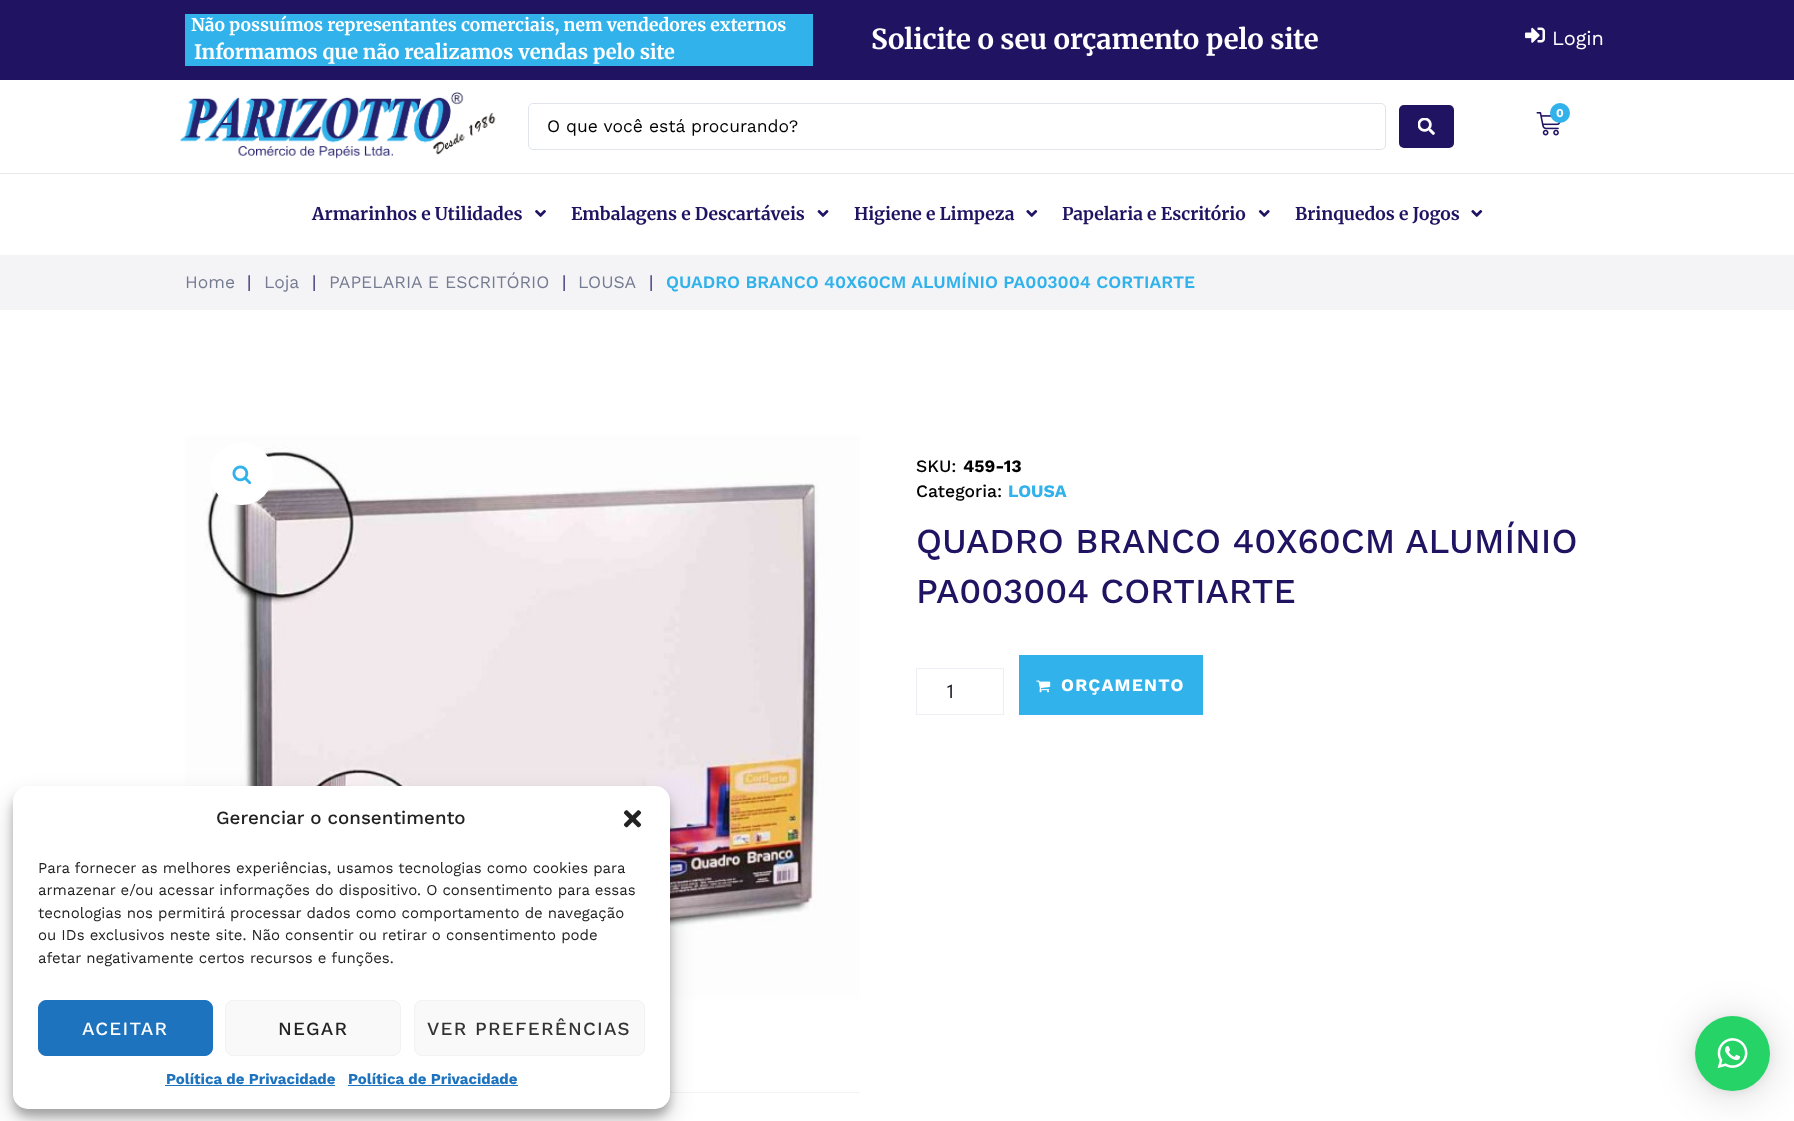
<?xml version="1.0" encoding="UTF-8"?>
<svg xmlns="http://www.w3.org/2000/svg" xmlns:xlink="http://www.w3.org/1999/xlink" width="1794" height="1121">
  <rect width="100%" height="100%" fill="#ffffff" />
  <rect width="1794" height="80" fill="#201362" />
  <rect x="185" y="14" width="628" height="52" fill="#31b2ea" />
  <image x="1525" y="27" width="20" height="16" xlink:href="image1.png" />
  <rect y="173" width="1794" height="1" fill="#e7e8e9" />
  <image x="179" y="92" width="317" height="67" xlink:href="image2.png" />
  <image x="1536" y="112" width="25" height="24" xlink:href="image3.png" />
  <circle cx="1560" cy="113" r="10" fill="#31b2ea" />
  <rect x="528.5" y="103.5" width="857" height="46" rx="4.5" fill="none" stroke="#e1e5eb" />
  <rect x="1399" y="105" width="55" height="43" rx="5" fill="#201362" />
  <image x="1418" y="118" width="17" height="17" xlink:href="image4.png" />
  <image x="535" y="210" width="11" height="7" xlink:href="image5.png" />
  <image x="817" y="210" width="12" height="7" xlink:href="image6.png" />
  <image x="1026" y="210" width="12" height="7" xlink:href="image7.png" />
  <image x="1258" y="210" width="12" height="7" xlink:href="image8.png" />
  <image x="1471" y="210" width="12" height="7" xlink:href="image7.png" />
  <rect y="255" width="1794" height="55" fill="#f4f4f7" />
  <rect x="670" y="1092" width="190" height="1" fill="#f4f4f7" />
  <image x="185" y="418" width="675" height="674" xlink:href="image9.png" />
  <rect x="210" y="443" width="63" height="62" rx="31" fill="#ffffff" />
  <image x="232" y="465" width="20" height="20" xlink:href="image10.png" />
  <rect x="916.5" y="668.5" width="87" height="46" fill="none" stroke="#eeeef5" />
  <rect x="1019" y="655" width="184" height="60" fill="#31b2ea" />
  <image x="1036" y="680" width="15" height="13" xlink:href="image11.png" />
  <rect x="13" y="794" width="657" height="322" rx="15" fill="#000000" fill-opacity="0.23" filter="blur(4px)" />
  <rect x="13" y="799" width="657" height="322" rx="15" fill="#000000" fill-opacity="0.19" filter="blur(12.5px)" />
  <rect x="13" y="786" width="657" height="323" rx="15" fill="#ffffff" />
  <image x="623" y="810" width="19" height="18" xlink:href="image12.png" />
  <rect x="38.5" y="1000.5" width="174" height="55" rx="7.5" fill="#1e73be" stroke="#1e73be" />
  <rect x="225.5" y="1000.5" width="175" height="55" rx="7.5" fill="#f9f9f9" stroke="#f2f2f2" />
  <rect x="414.5" y="1000.5" width="230" height="55" rx="7.5" fill="#f9f9f9" stroke="#f2f2f2" />
  <rect x="165" y="1085" width="170" height="1" fill="#1e73be" />
  <rect x="348" y="1085" width="170" height="1" fill="#1e73be" />
  <rect x="1695" y="1019" width="75" height="75" rx="37.5" fill="#000000" fill-opacity="0.16" filter="blur(20px)" />
  <rect x="1695" y="1018" width="75" height="75" rx="37.5" fill="#000000" fill-opacity="0.06" filter="blur(4px)" />
  <circle cx="1732.5" cy="1053.5" r="37.5" fill="#25d366" />
  <image x="1717" y="1038" width="31" height="31" xlink:href="image13.png" />
  <text x="191" y="31" style="font-family: Merriweather; font-size: 17.5px; font-weight: bold; fill: #ffffff">Não possuímos representantes comerciais, nem vendedores externos</text>
  <text x="194" y="59" style="font-family: Merriweather; font-size: 20px; font-weight: bold; fill: #ffffff">Informamos que não realizamos vendas pelo site</text>
  <text x="871" y="49" style="font-family: Merriweather; font-size: 27.5px; font-weight: bold; fill: #ffffff">Solicite o seu orçamento pelo site</text>
  <text x="1552" y="45" style="font-family: Work Sans; font-size: 20px; fill: #ffffff">Login</text>
  <text x="1556" y="117" style="font-family: Work Sans; font-size: 12px; font-weight: bold; fill: #ffffff">0</text>
  <text x="547" y="132" style="font-family: Work Sans; font-size: 17.5px; fill: #000000">O que você está procurando?</text>
  <text x="312" y="220" style="font-family: Merriweather; font-size: 17.5px; font-weight: bold; fill: #201362">Armarinhos e Utilidades</text>
  <text x="571" y="220" style="font-family: Merriweather; font-size: 17.5px; font-weight: bold; fill: #201362">Embalagens e Descartáveis</text>
  <text x="854" y="220" style="font-family: Merriweather; font-size: 17.5px; font-weight: bold; fill: #201362">Higiene e Limpeza</text>
  <text x="1062" y="220" style="font-family: Merriweather; font-size: 17.5px; font-weight: bold; fill: #201362">Papelaria e Escritório</text>
  <text x="1295" y="220" style="font-family: Merriweather; font-size: 17.5px; font-weight: bold; fill: #201362">Brinquedos e Jogos</text>
  <text x="185" y="288" style="font-family: Work Sans; font-size: 17.5px; fill: #757b91">Home</text>
  <text x="247" y="288" style="font-family: Work Sans; font-size: 17.5px; fill: #201362">|</text>
  <text x="264" y="288" style="font-family: Work Sans; font-size: 17.5px; fill: #757b91">Loja</text>
  <text x="312" y="288" style="font-family: Work Sans; font-size: 17.5px; fill: #201362">|</text>
  <text x="329" y="288" style="font-family: Work Sans; font-size: 17.5px; fill: #757b91">PAPELARIA E ESCRITÓRIO</text>
  <text x="562" y="288" style="font-family: Work Sans; font-size: 17.5px; fill: #201362">|</text>
  <text x="578" y="288" style="font-family: Work Sans; font-size: 17.5px; fill: #757b91">LOUSA</text>
  <text x="649" y="288" style="font-family: Work Sans; font-size: 17.5px; fill: #201362">|</text>
  <text x="666" y="288" style="font-family: Work Sans; font-size: 17.5px; font-weight: 600; fill: #31b2ea">QUADRO BRANCO 40X60CM ALUMÍNIO PA003004 CORTIARTE</text>
  <text x="916" y="472" style="font-family: Work Sans; font-size: 17.5px; font-weight: 500; fill: #000000">SKU:</text>
  <text x="963" y="472" style="font-family: Work Sans; font-size: 17.5px; font-weight: bold; fill: #000000">459-13</text>
  <text x="916" y="497" style="font-family: Work Sans; font-size: 17.5px; font-weight: 500; fill: #000000">Categoria:</text>
  <text x="1008" y="497" style="font-family: Work Sans; font-size: 17.5px; font-weight: bold; fill: #31b2ea">LOUSA</text>
  <text x="916" y="553" style="font-family: Work Sans; font-size: 35px; font-weight: 500; fill: #201362">QUADRO BRANCO 40X60CM ALUMÍNIO</text>
  <text x="916" y="603" style="font-family: Work Sans; font-size: 35px; font-weight: 500; fill: #201362">PA003004 CORTIARTE</text>
  <text x="946" y="698" style="font-family: Roboto Condensed; font-size: 18.75px; fill: #171a25">1</text>
  <text x="1061" y="691" style="font-family: Work Sans; font-size: 17.5px; font-weight: bold; letter-spacing: 1.25px; fill: #ffffff">ORÇAMENTO</text>
  <text x="216" y="824" style="font-family: Work Sans; font-size: 18.75px; font-weight: 500; fill: #222222">Gerenciar o consentimento</text>
  <text x="38" y="873" style="font-family: Work Sans; font-size: 15px; fill: #222222">Para fornecer as melhores experiências, usamos tecnologias como cookies para</text>
  <text x="38" y="895" style="font-family: Work Sans; font-size: 15px; fill: #222222">armazenar e/ou acessar informações do dispositivo. O consentimento para essas</text>
  <text x="38" y="918" style="font-family: Work Sans; font-size: 15px; fill: #222222">tecnologias nos permitirá processar dados como comportamento de navegação</text>
  <text x="38" y="940" style="font-family: Work Sans; font-size: 15px; fill: #222222">ou IDs exclusivos neste site. Não consentir ou retirar o consentimento pode</text>
  <text x="38" y="963" style="font-family: Work Sans; font-size: 15px; fill: #222222">afetar negativamente certos recursos e funções.</text>
  <text x="82" y="1035" style="font-family: Work Sans; font-size: 18.75px; font-weight: 500; letter-spacing: 1.25px; fill: #ffffff">ACEITAR</text>
  <text x="278" y="1035" style="font-family: Work Sans; font-size: 18.75px; font-weight: 500; letter-spacing: 1.25px; fill: #222222">NEGAR</text>
  <text x="427" y="1035" style="font-family: Work Sans; font-size: 18.75px; font-weight: 500; letter-spacing: 1.25px; fill: #333333">VER PREFERÊNCIAS</text>
  <text x="166" y="1084" style="font-family: Work Sans; font-size: 15px; font-weight: bold; fill: #1e73be">Política de Privacidade</text>
  <text x="348" y="1084" style="font-family: Work Sans; font-size: 15px; font-weight: bold; fill: #1e73be">Política de Privacidade</text>
</svg>
